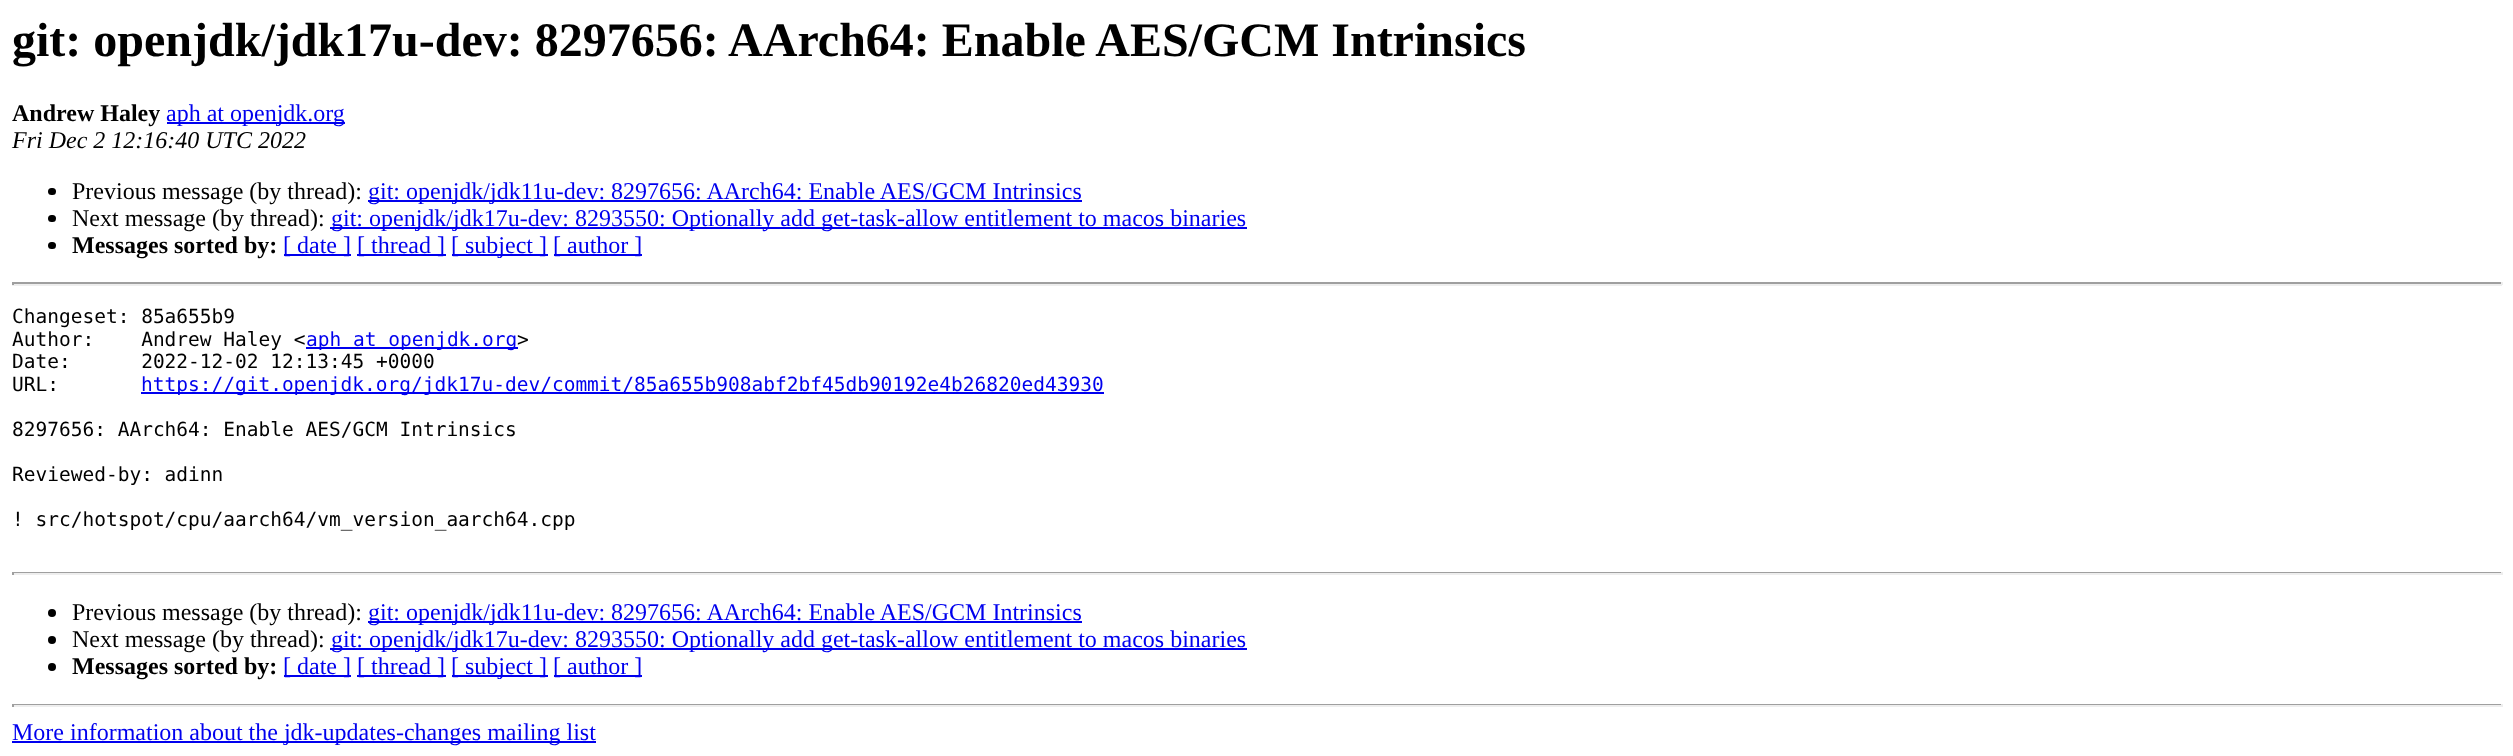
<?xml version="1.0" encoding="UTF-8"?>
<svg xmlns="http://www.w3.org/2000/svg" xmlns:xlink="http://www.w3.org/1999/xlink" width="2513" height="756">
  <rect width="100%" height="100%" fill="#ffffff" />
  <rect x="167" y="122" width="178" height="2" fill="#0000ee" />
  <rect x="48" y="188" width="8" height="7" rx="3.5" fill="#000000" />
  <rect x="368" y="200" width="714" height="2" fill="#0000ee" />
  <rect x="48" y="215" width="8" height="7" rx="3.5" fill="#000000" />
  <rect x="330" y="227" width="917" height="2" fill="#0000ee" />
  <rect x="48" y="242" width="8" height="7" rx="3.5" fill="#000000" />
  <rect x="284" y="254" width="67" height="2" fill="#0000ee" />
  <rect x="357" y="254" width="89" height="2" fill="#0000ee" />
  <rect x="452" y="254" width="96" height="2" fill="#0000ee" />
  <rect x="554" y="254" width="88" height="2" fill="#0000ee" />
  <rect x="12" y="282" width="2490" height="2" fill="#9f9f9f" />
  <rect x="2501" y="282" width="2" height="3" fill="#eeeeee" />
  <rect x="12" y="284" width="2490" height="2" fill="#eeeeee" />
  <rect x="12" y="282" width="2" height="3" fill="#9f9f9f" />
  <rect x="306" y="347" width="212" height="2" fill="#0000ee" />
  <rect x="141" y="392" width="963" height="2" fill="#0000ee" />
  <rect x="12" y="572" width="2490" height="1" fill="#9f9f9f" />
  <rect x="2501" y="572" width="2" height="3" fill="#eeeeee" />
  <rect x="12" y="573" width="2490" height="2" fill="#eeeeee" />
  <rect x="12" y="572" width="2" height="3" fill="#9f9f9f" />
  <circle cx="52" cy="613" r="4" fill="#000000" />
  <rect x="368" y="621" width="714" height="2" fill="#0000ee" />
  <circle cx="52" cy="640" r="4" fill="#000000" />
  <rect x="330" y="648" width="917" height="2" fill="#0000ee" />
  <circle cx="52" cy="667" r="4" fill="#000000" />
  <rect x="284" y="675" width="67" height="2" fill="#0000ee" />
  <rect x="357" y="675" width="89" height="2" fill="#0000ee" />
  <rect x="452" y="675" width="96" height="2" fill="#0000ee" />
  <rect x="554" y="675" width="88" height="2" fill="#0000ee" />
  <rect x="12" y="704" width="2490" height="1" fill="#9f9f9f" />
  <rect x="2501" y="704" width="2" height="3" fill="#eeeeee" />
  <rect x="12" y="705" width="2490" height="2" fill="#eeeeee" />
  <rect x="12" y="704" width="2" height="3" fill="#9f9f9f" />
  <rect x="12" y="741" width="584" height="2" fill="#0000ee" />
  <text x="12" y="56" style="font-family: Liberation Serif; font-size: 48px; font-weight: bold; fill: #000000">git: openjdk/jdk17u-dev: 8297656: AArch64: Enable AES/GCM Intrinsics</text>
  <text x="12" y="121" style="font-family: Liberation Serif; font-size: 24px; font-weight: bold; fill: #000000">Andrew Haley</text>
  <text x="166" y="121" style="font-family: Liberation Serif; font-size: 24px; fill: #0000ee">aph at openjdk.org</text>
  <text x="12" y="148" style="font-family: Liberation Serif; font-size: 24px; font-style: italic; fill: #000000">Fri Dec 2 12:16:40 UTC 2022</text>
  <text x="72" y="199" style="font-family: Liberation Serif; font-size: 24px; fill: #000000">Previous message (by thread):</text>
  <text x="368" y="199" style="font-family: Liberation Serif; font-size: 24px; fill: #0000ee">git: openjdk/jdk11u-dev: 8297656: AArch64: Enable AES/GCM Intrinsics</text>
  <text x="72" y="226" style="font-family: Liberation Serif; font-size: 24px; fill: #000000">Next message (by thread):</text>
  <text x="331" y="226" style="font-family: Liberation Serif; font-size: 24px; fill: #0000ee">git: openjdk/jdk17u-dev: 8293550: Optionally add get-task-allow entitlement to macos binaries</text>
  <text x="72" y="253" style="font-family: Liberation Serif; font-size: 24px; font-weight: bold; fill: #000000">Messages sorted by:</text>
  <text x="283" y="253" style="font-family: Liberation Serif; font-size: 24px; fill: #0000ee">[ date ]</text>
  <text x="357" y="253" style="font-family: Liberation Serif; font-size: 24px; fill: #0000ee">[ thread ]</text>
  <text x="451" y="253" style="font-family: Liberation Serif; font-size: 24px; fill: #0000ee">[ subject ]</text>
  <text x="553" y="253" style="font-family: Liberation Serif; font-size: 24px; fill: #0000ee">[ author ]</text>
  <text x="12" y="323" style="font-family: DejaVu Sans Mono; font-size: 19.5px; fill: #000000">Changeset: 85a655b9</text>
  <text x="12" y="346" style="font-family: DejaVu Sans Mono; font-size: 19.5px; fill: #000000" xml:space="preserve">Author:    Andrew Haley &lt;</text>
  <text x="306" y="346" style="font-family: DejaVu Sans Mono; font-size: 19.5px; fill: #0000ee">aph at openjdk.org</text>
  <text x="517" y="346" style="font-family: DejaVu Sans Mono; font-size: 19.5px; fill: #000000">&gt;</text>
  <text x="12" y="368" style="font-family: DejaVu Sans Mono; font-size: 19.5px; fill: #000000" xml:space="preserve">Date:      2022-12-02 12:13:45 +0000</text>
  <text x="12" y="391" style="font-family: DejaVu Sans Mono; font-size: 19.5px; fill: #000000">URL:</text>
  <text x="141" y="391" style="font-family: DejaVu Sans Mono; font-size: 19.5px; fill: #0000ee">https://git.openjdk.org/jdk17u-dev/commit/85a655b908abf2bf45db90192e4b26820ed43930</text>
  <text x="12" y="436" style="font-family: DejaVu Sans Mono; font-size: 19.5px; fill: #000000">8297656: AArch64: Enable AES/GCM Intrinsics</text>
  <text x="12" y="481" style="font-family: DejaVu Sans Mono; font-size: 19.5px; fill: #000000">Reviewed-by: adinn</text>
  <text x="12" y="526" style="font-family: DejaVu Sans Mono; font-size: 19.5px; fill: #000000">! src/hotspot/cpu/aarch64/vm_version_aarch64.cpp</text>
  <text x="72" y="620" style="font-family: Liberation Serif; font-size: 24px; fill: #000000">Previous message (by thread):</text>
  <text x="368" y="620" style="font-family: Liberation Serif; font-size: 24px; fill: #0000ee">git: openjdk/jdk11u-dev: 8297656: AArch64: Enable AES/GCM Intrinsics</text>
  <text x="72" y="647" style="font-family: Liberation Serif; font-size: 24px; fill: #000000">Next message (by thread):</text>
  <text x="331" y="647" style="font-family: Liberation Serif; font-size: 24px; fill: #0000ee">git: openjdk/jdk17u-dev: 8293550: Optionally add get-task-allow entitlement to macos binaries</text>
  <text x="72" y="674" style="font-family: Liberation Serif; font-size: 24px; font-weight: bold; fill: #000000">Messages sorted by:</text>
  <text x="283" y="674" style="font-family: Liberation Serif; font-size: 24px; fill: #0000ee">[ date ]</text>
  <text x="357" y="674" style="font-family: Liberation Serif; font-size: 24px; fill: #0000ee">[ thread ]</text>
  <text x="451" y="674" style="font-family: Liberation Serif; font-size: 24px; fill: #0000ee">[ subject ]</text>
  <text x="553" y="674" style="font-family: Liberation Serif; font-size: 24px; fill: #0000ee">[ author ]</text>
  <text x="12" y="740" style="font-family: Liberation Serif; font-size: 24px; fill: #0000ee">More information about the jdk-updates-changes mailing list</text>
</svg>
